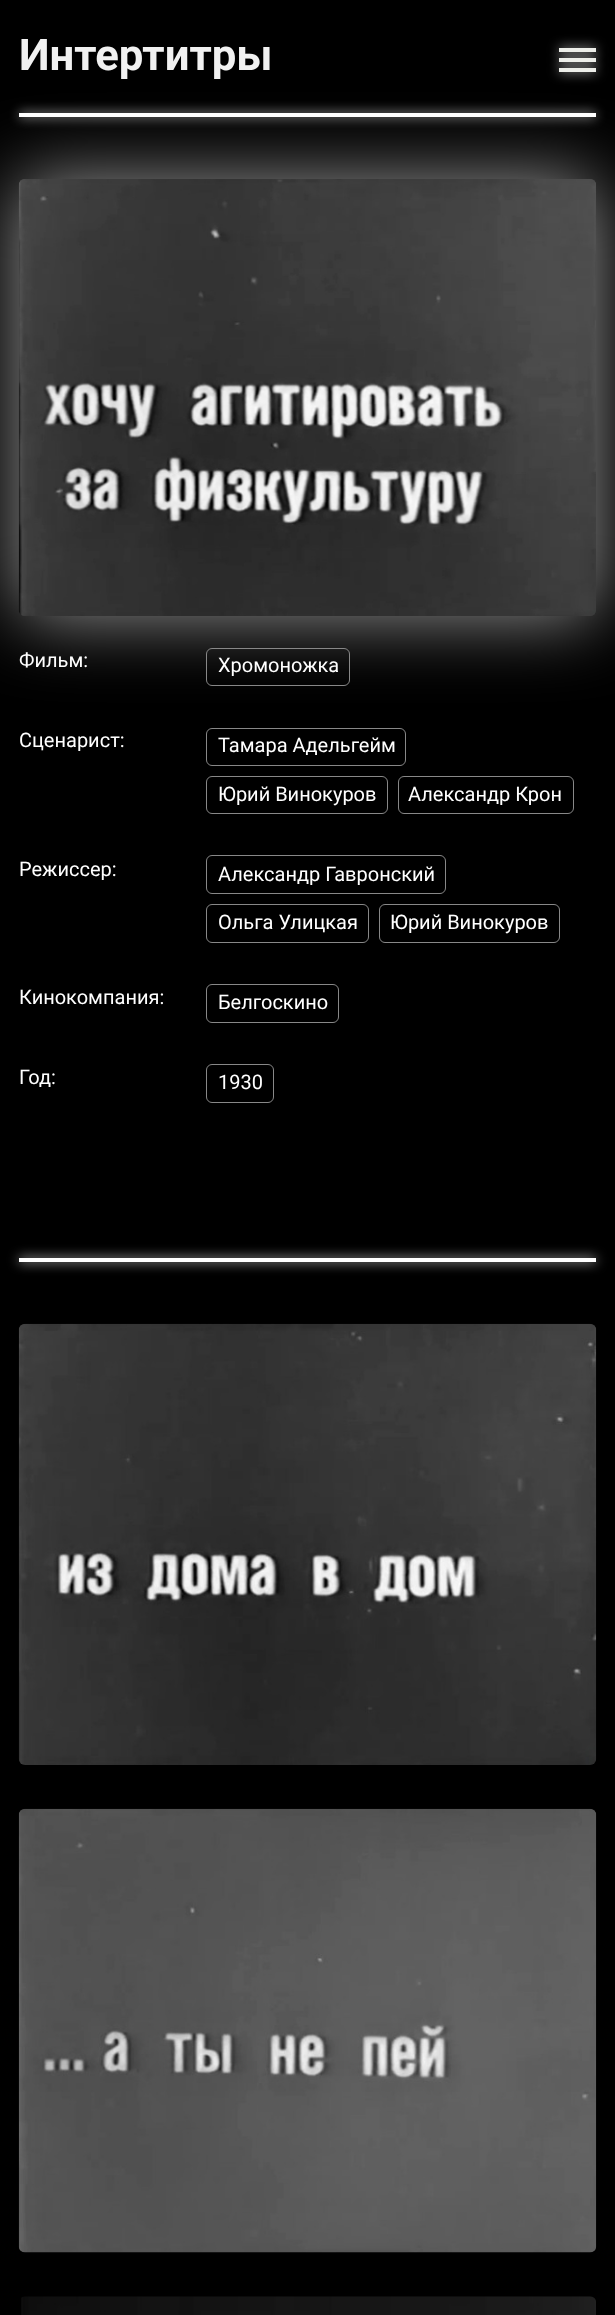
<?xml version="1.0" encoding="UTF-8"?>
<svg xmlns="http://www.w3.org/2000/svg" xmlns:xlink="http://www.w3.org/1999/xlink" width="615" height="2315">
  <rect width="100%" height="100%" fill="#000000" />
  <rect x="559" y="58" width="37" height="4" fill="#ffffff" fill-opacity="0.8" filter="blur(6px)" />
  <rect x="559" y="58" width="37" height="4" fill="#edeee9" />
  <rect x="559" y="48" width="37" height="4" fill="#ffffff" fill-opacity="0.8" filter="blur(6px)" />
  <rect x="559" y="48" width="37" height="4" fill="#edeee9" />
  <rect x="559" y="68" width="37" height="4" fill="#ffffff" fill-opacity="0.8" filter="blur(6px)" />
  <rect x="19" y="113" width="577" height="4" fill="#ffffff" fill-opacity="0.8" filter="blur(6px)" />
  <rect x="19" y="113" width="577" height="4" fill="#ffffff" />
  <rect x="19" y="179" width="577" height="437" rx="6" fill="#ffffff" fill-opacity="0.6" filter="blur(37.5px)" />
  <rect x="559" y="68" width="37" height="4" fill="#edeee9" />
  <image x="18" y="179" width="578" height="437" xlink:href="image1.png" />
  <rect x="206.5" y="648.5" width="143" height="37" rx="5.5" fill="none" stroke="#888888" />
  <rect x="206.5" y="728.5" width="199" height="37" rx="5.5" fill="none" stroke="#888888" />
  <rect x="206.5" y="776.5" width="181" height="37" rx="5.5" fill="none" stroke="#888888" />
  <rect x="398.5" y="776.5" width="175" height="37" rx="5.5" fill="none" stroke="#888888" />
  <rect x="206.5" y="855.5" width="239" height="38" rx="5.5" fill="none" stroke="#888888" />
  <rect x="206.5" y="904.5" width="162" height="38" rx="5.5" fill="none" stroke="#888888" />
  <rect x="379.5" y="904.5" width="180" height="38" rx="5.5" fill="none" stroke="#888888" />
  <rect x="206.5" y="984.5" width="132" height="38" rx="5.5" fill="none" stroke="#888888" />
  <rect x="206.5" y="1064.5" width="67" height="38" rx="5.5" fill="none" stroke="#888888" />
  <rect x="19" y="1258" width="577" height="4" fill="#ffffff" fill-opacity="0.9" filter="blur(6px)" />
  <rect x="19" y="1258" width="577" height="4" fill="#ffffff" />
  <image x="18" y="1323" width="579" height="442" xlink:href="image2.png" />
  <image x="18" y="1808" width="579" height="445" xlink:href="image3.png" />
  <image x="21" y="2296" width="575" height="19" xlink:href="image4.png" />
  <text x="19" y="70" style="font-family: Roboto; font-size: 43.75px; font-weight: bold; fill: #f1f1f1">Интертитры</text>
  <text x="19" y="667" style="font-family: Roboto; font-size: 20px; fill: #ffffff">Фильм:</text>
  <text x="218" y="672" style="font-family: Roboto; font-size: 20px; fill: #ffffff">Хромоножка</text>
  <text x="19" y="747" style="font-family: Roboto; font-size: 20px; fill: #ffffff">Сценарист:</text>
  <text x="218" y="752" style="font-family: Roboto; font-size: 20px; fill: #ffffff">Тамара Адельгейм</text>
  <text x="218" y="801" style="font-family: Roboto; font-size: 20px; fill: #ffffff">Юрий Винокуров</text>
  <text x="408" y="801" style="font-family: Roboto; font-size: 20px; fill: #ffffff">Александр Крон</text>
  <text x="19" y="876" style="font-family: Roboto; font-size: 20px; fill: #ffffff">Режиссер:</text>
  <text x="218" y="881" style="font-family: Roboto; font-size: 20px; fill: #ffffff">Александр Гавронский</text>
  <text x="218" y="929" style="font-family: Roboto; font-size: 20px; fill: #ffffff">Ольга Улицкая</text>
  <text x="390" y="929" style="font-family: Roboto; font-size: 20px; fill: #ffffff">Юрий Винокуров</text>
  <text x="19" y="1004" style="font-family: Roboto; font-size: 20px; fill: #ffffff">Кинокомпания:</text>
  <text x="218" y="1009" style="font-family: Roboto; font-size: 20px; fill: #ffffff">Белгоскино</text>
  <text x="19" y="1084" style="font-family: Roboto; font-size: 20px; fill: #ffffff">Год:</text>
  <text x="218" y="1089" style="font-family: Roboto; font-size: 20px; fill: #ffffff">1930</text>
</svg>
